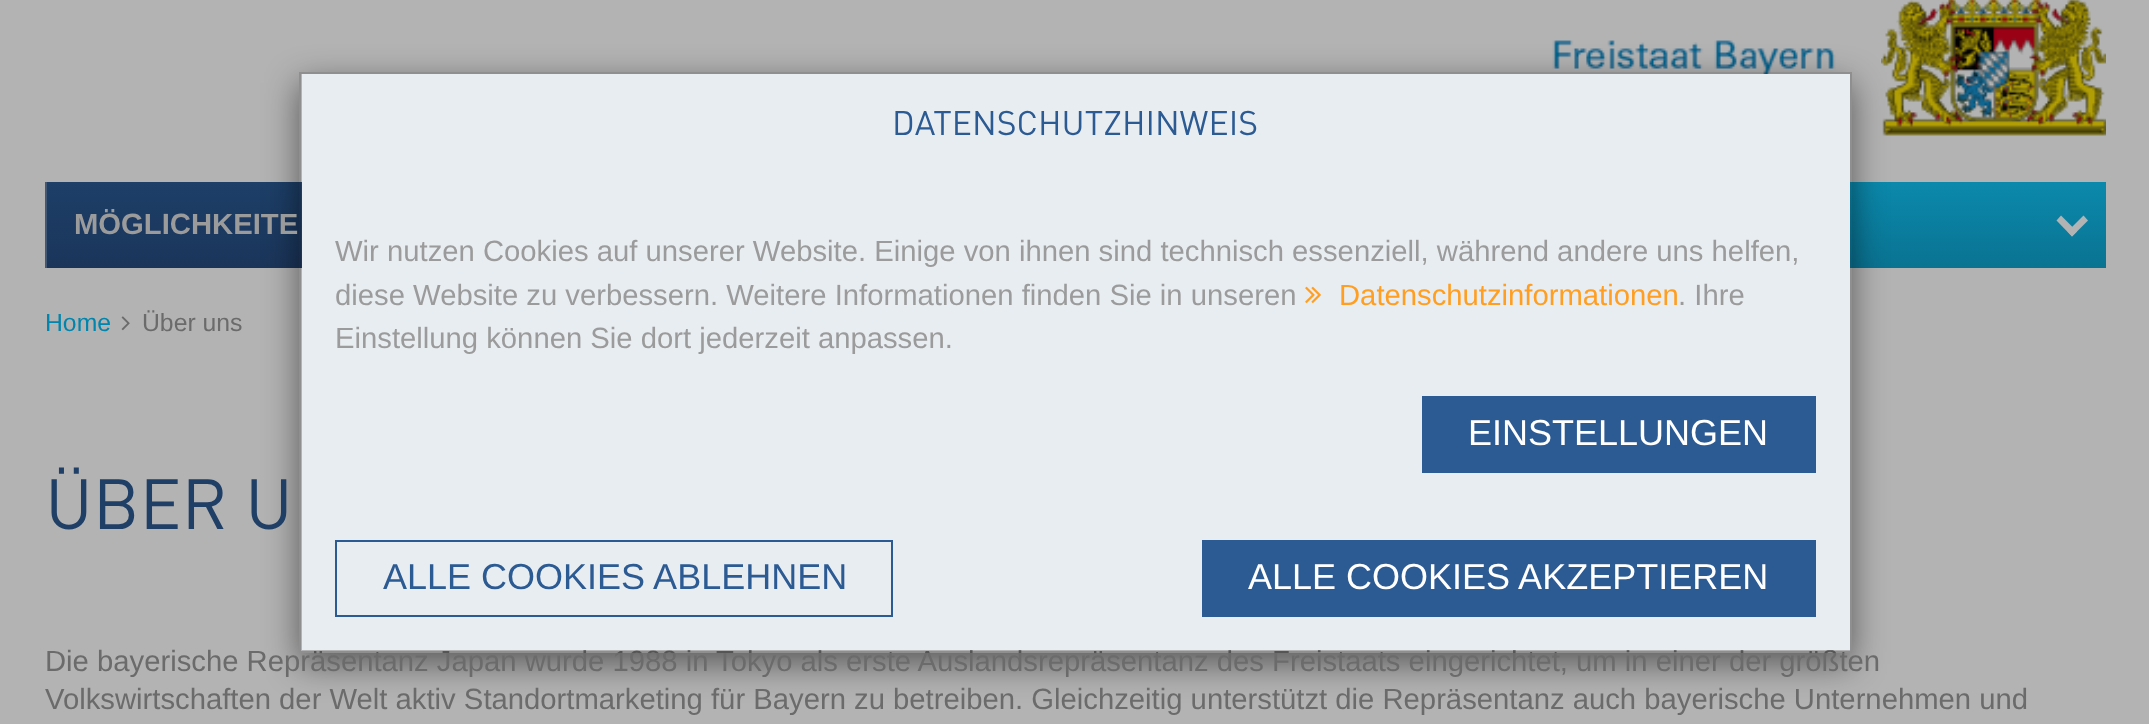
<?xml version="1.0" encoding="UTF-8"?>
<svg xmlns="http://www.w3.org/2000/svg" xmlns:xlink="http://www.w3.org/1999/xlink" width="2149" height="724">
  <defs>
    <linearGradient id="g1" gradientUnits="userSpaceOnUse" x1="197" y1="182" x2="197" y2="268"><stop offset="0" stop-color="#1d3f68" /><stop offset="1" stop-color="#1b355a" /></linearGradient>
    <linearGradient id="g2" gradientUnits="userSpaceOnUse" x1="1737" y1="182" x2="1737" y2="268"><stop offset="0" stop-color="#0b89ac" /><stop offset="1" stop-color="#0a7392" /></linearGradient>
    <clipPath id="clip1"><path d="M 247 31 h 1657 v 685 h -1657 z m 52 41 h 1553 v 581 h -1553 z" clip-rule="evenodd" /></clipPath>
  </defs>
  <rect width="100%" height="100%" fill="#b3b3b3" />
  <image x="1483" y="40" width="353" height="34" xlink:href="image2.png" />
  <image x="1881" y="0" width="225" height="136" xlink:href="image3.png" />
  <rect x="47" y="182" width="255" height="86" fill="url(#g1)" />
  <rect x="1850" y="182" width="256" height="86" fill="url(#g2)" />
  <g clip-path="url(#clip1)">
    <rect x="299" y="83" width="1553" height="581" fill="#000000" fill-opacity="0.5" filter="blur(17px)" />
  </g>
  <rect x="45" y="182" width="2" height="86" fill="#425975" />
  <path d="M 2083.5 215.5 l 4.5 5 l -16 16 l -4.5 -5 z" fill="#b3b3b3" />
  <path d="M 2061 215.5 l 16 16 l -5 5 l -15.5 -16 z" fill="#b3b3b3" />
  <image x="121" y="316" width="9" height="15" xlink:href="image4.png" />
  <text x="74" y="234" style="font-family: Liberation Sans; font-size: 29.25px; font-weight: bold; fill: #9b9b9b">MÖGLICHKEITE</text>
  <text x="45" y="331" style="font-family: Liberation Sans; font-size: 24.75px; fill: #0085ac">Home</text>
  <text x="142" y="331" style="font-family: Liberation Sans; font-size: 24.75px; fill: #6b6b6b">Über uns</text>
  <text x="45" y="529" style="font-family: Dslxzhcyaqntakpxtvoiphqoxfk; font-size: 70px; fill: #1f3f67">ÜBER U</text>
  <text x="45" y="671" style="font-family: Liberation Sans; font-size: 29.25px; fill: #6b6b6b">Die bayerische Repräsentanz Japan wurde 1988 in Tokyo als erste Auslandsrepräsentanz des Freistaats eingerichtet, um in einer der größten</text>
  <rect x="302" y="74" width="1548" height="576" fill="#e8edf1" />
  <rect x="300" y="73" width="1551" height="579" fill="none" stroke="#000000" stroke-opacity="0.2" stroke-width="2" />
  <image x="1305" y="286" width="16" height="18" xlink:href="image1.png" />
  <text x="1339" y="305" style="font-family: Liberation Sans; font-size: 29.25px; fill: #ff9e21">Datenschutzinformationen</text>
  <rect x="1202" y="540" width="614" height="77" fill="#2c5a93" />
  <text x="1248" y="589" style="font-family: Liberation Sans; font-size: 36px; fill: #ffffff">ALLE COOKIES AKZEPTIEREN</text>
  <rect x="336" y="541" width="556" height="75" fill="none" stroke="#2c5a93" stroke-width="2" />
  <text x="383" y="589" style="font-family: Liberation Sans; font-size: 36px; fill: #2c5a93">ALLE COOKIES ABLEHNEN</text>
  <rect x="1422" y="396" width="394" height="77" fill="#2c5a93" />
  <text x="1468" y="445" style="font-family: Liberation Sans; font-size: 36px; fill: #ffffff">EINSTELLUNGEN</text>
  <text x="335" y="348" style="font-family: Liberation Sans; font-size: 29.25px; fill: #9b9b9b">Einstellung können Sie dort jederzeit anpassen.</text>
  <text x="1678" y="305" style="font-family: Liberation Sans; font-size: 29.25px; fill: #9b9b9b">. Ihre</text>
  <text x="335" y="305" style="font-family: Liberation Sans; font-size: 29.25px; fill: #9b9b9b">diese Website zu verbessern. Weitere Informationen finden Sie in unseren</text>
  <text x="335" y="261" style="font-family: Liberation Sans; font-size: 29.25px; fill: #9b9b9b">Wir nutzen Cookies auf unserer Website. Einige von ihnen sind technisch essenziell, während andere uns helfen,</text>
  <text x="892" y="135" style="font-family: Dslxzhcyaqntakpxtvoiphqoxfk; font-size: 33.75px; fill: #2c5a93">DATENSCHUTZHINWEIS</text>
  <text x="45" y="709" style="font-family: Liberation Sans; font-size: 29.25px; fill: #6b6b6b">Volkswirtschaften der Welt aktiv Standortmarketing für Bayern zu betreiben. Gleichzeitig unterstützt die Repräsentanz auch bayerische Unternehmen und</text>
</svg>
